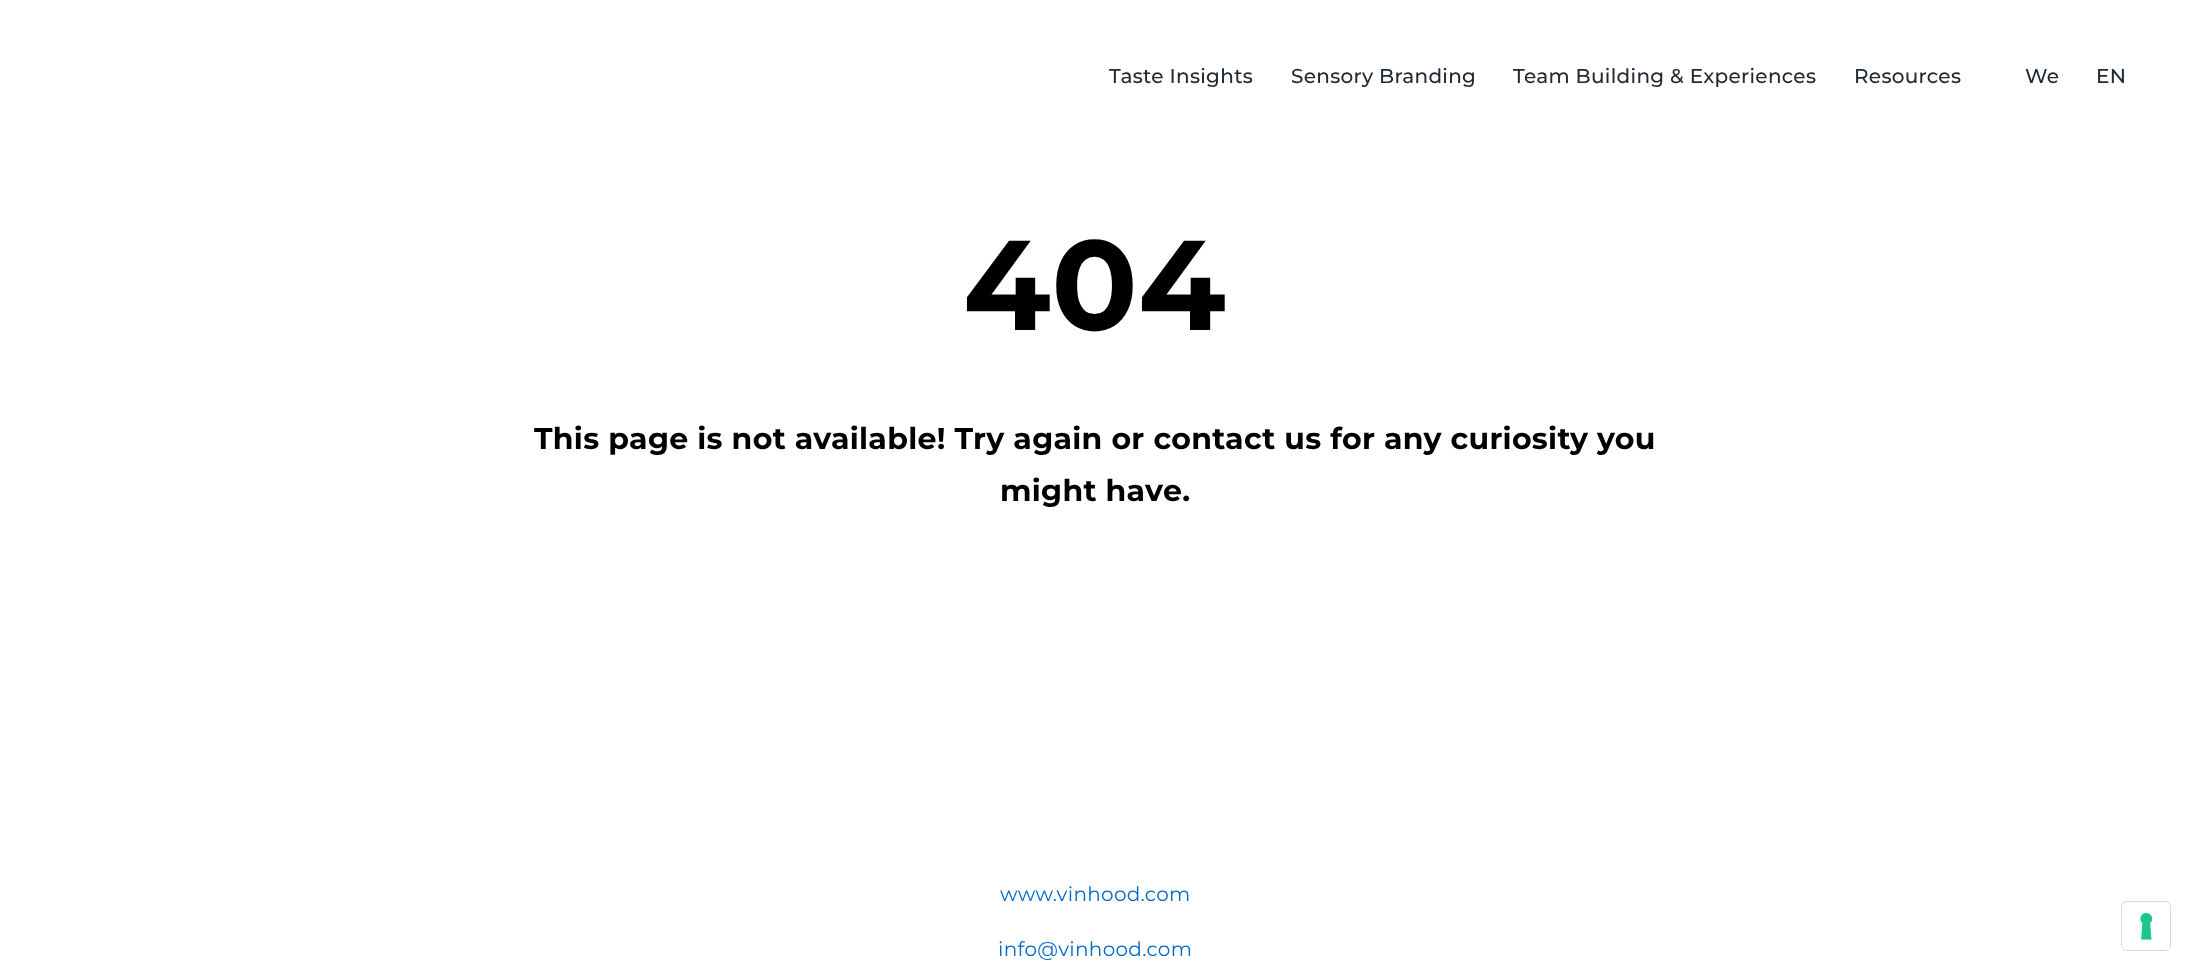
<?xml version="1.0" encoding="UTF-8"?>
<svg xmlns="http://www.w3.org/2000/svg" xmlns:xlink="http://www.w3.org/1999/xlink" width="2189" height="969">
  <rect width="100%" height="100%" fill="#ffffff" />
  <rect x="2121.5" y="901.5" width="49" height="49" rx="5.5" fill="none" stroke="#d9d9d9" />
  <rect x="2123" y="903" width="47" height="47" rx="5" fill="#ffffff" />
  <image x="2140" y="912" width="13" height="28" xlink:href="image1.png" />
  <text x="1109" y="83" style="font-family: Montserrat; font-size: 20px; font-weight: 500; letter-spacing: 0.3px; fill: #212934">Taste Insights</text>
  <text x="1291" y="83" style="font-family: Montserrat; font-size: 20px; font-weight: 500; letter-spacing: 0.3px; fill: #212934">Sensory Branding</text>
  <text x="1513" y="83" style="font-family: Montserrat; font-size: 20px; font-weight: 500; letter-spacing: 0.3px; fill: #212934">Team Building &amp; Experiences</text>
  <text x="1854" y="83" style="font-family: Montserrat; font-size: 20px; font-weight: 500; letter-spacing: 0.3px; fill: #212934">Resources</text>
  <text x="2025" y="83" style="font-family: Montserrat; font-size: 20px; font-weight: 500; letter-spacing: 0.3px; fill: #212934">We</text>
  <text x="2096" y="83" style="font-family: Montserrat; font-size: 20px; font-weight: 500; letter-spacing: 0.3px; fill: #212934">EN</text>
  <text x="963" y="330" style="font-family: Montserrat; font-size: 127.5px; font-weight: bold; letter-spacing: 0.3px; fill: #000000">404</text>
  <text x="534" y="449" style="font-family: Montserrat; font-size: 30px; font-weight: bold; letter-spacing: 0.3px; fill: #000000">This page is not available! Try again or contact us for any curiosity you</text>
  <text x="1000" y="501" style="font-family: Montserrat; font-size: 30px; font-weight: bold; letter-spacing: 0.3px; fill: #000000">might have.</text>
  <text x="1000" y="901" style="font-family: Montserrat; font-size: 20px; letter-spacing: 0.3px; fill: #006ac6">www.vinhood.com</text>
  <text x="998" y="956" style="font-family: Montserrat; font-size: 20px; letter-spacing: 0.3px; fill: #006ac6">info@vinhood.com</text>
</svg>
